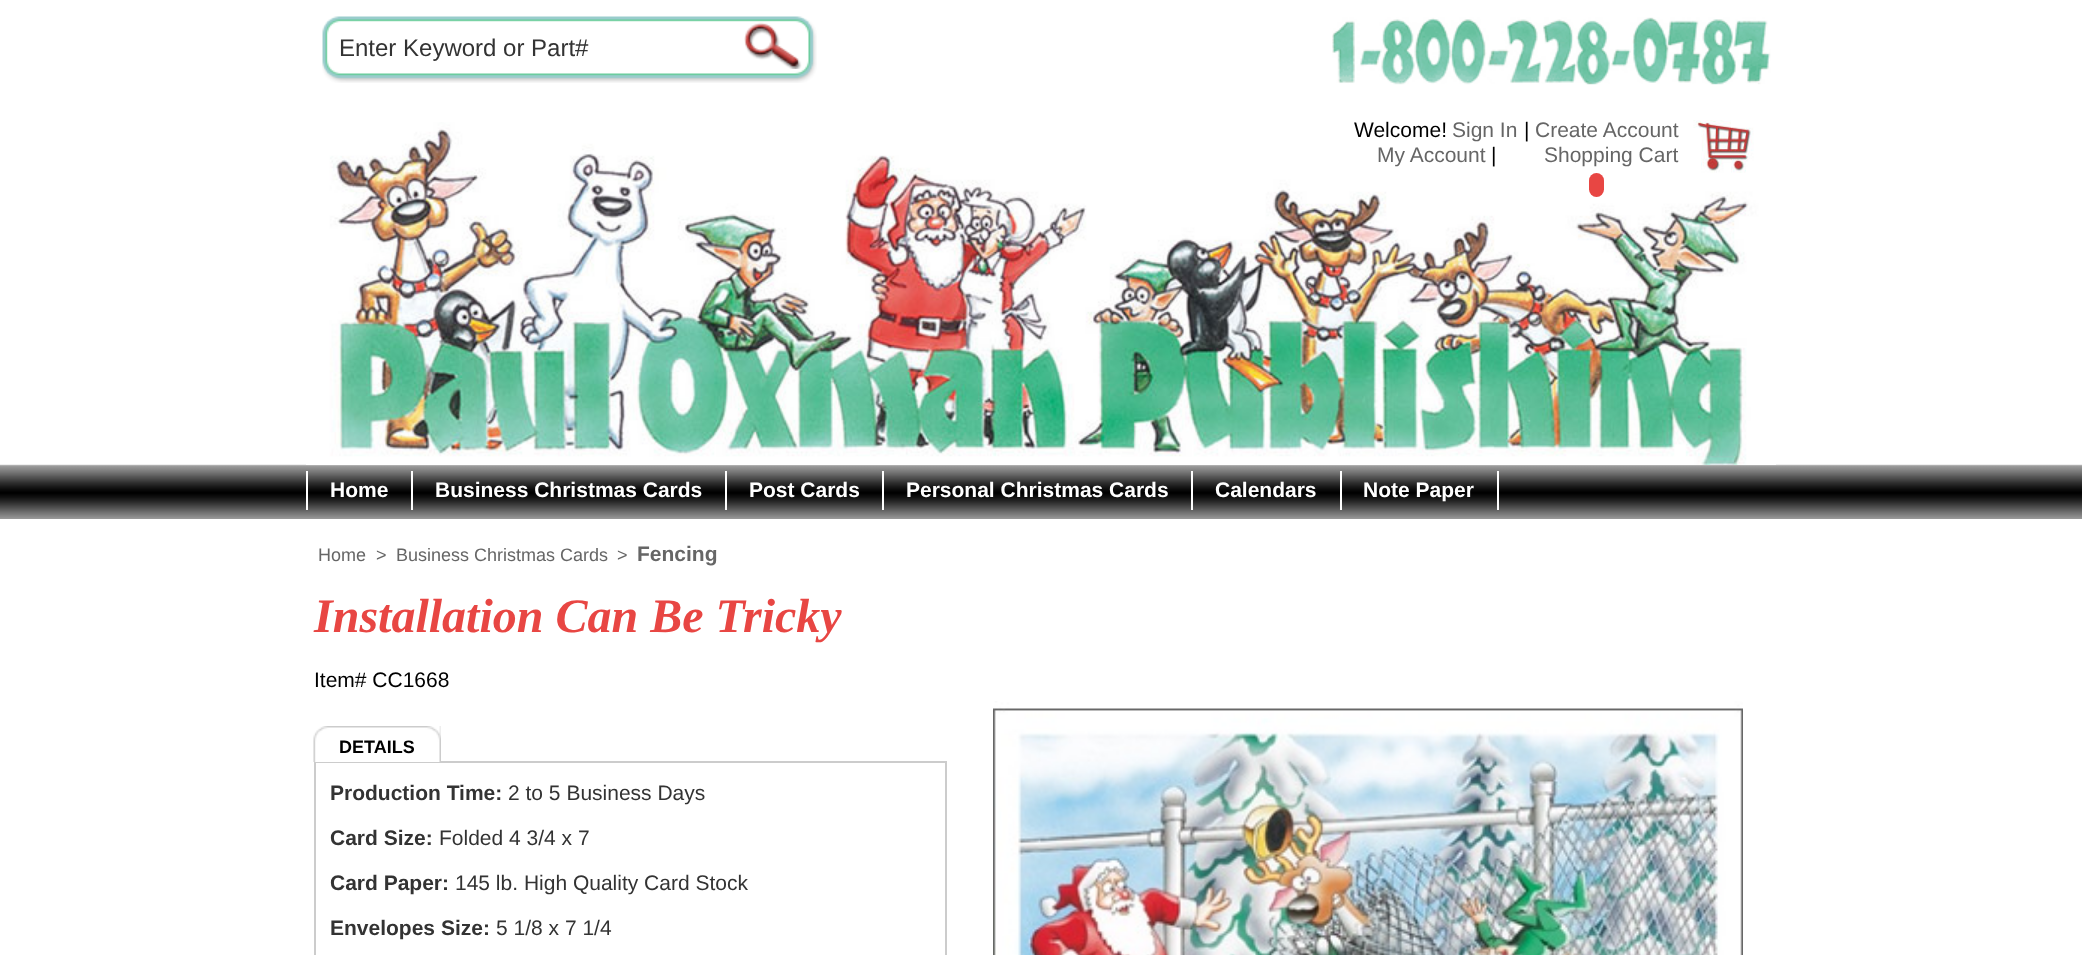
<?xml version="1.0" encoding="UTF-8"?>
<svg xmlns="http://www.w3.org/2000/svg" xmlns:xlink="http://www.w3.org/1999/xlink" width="2082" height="955">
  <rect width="100%" height="100%" fill="#ffffff" />
  <image x="0" y="464" width="2082" height="55" xlink:href="image1.png" />
  <image x="322" y="16" width="495" height="67" xlink:href="image2.png" />
  <image x="744" y="22" width="58" height="47" xlink:href="image3.png" />
  <image x="1332" y="17" width="439" height="68" xlink:href="image4.png" />
  <image x="306" y="122" width="1470" height="343" xlink:href="image6.png" />
  <rect x="1589" y="173" width="15" height="24" rx="7.5" fill="#e84643" />
  <image x="1693" y="120" width="61" height="53" xlink:href="image5.png" />
  <rect x="306" y="471" width="2" height="39" fill="#ffffff" />
  <rect x="725" y="471" width="2" height="39" fill="#ffffff" />
  <rect x="411" y="471" width="2" height="39" fill="#ffffff" />
  <rect x="882" y="471" width="2" height="39" fill="#ffffff" />
  <rect x="1191" y="471" width="2" height="39" fill="#ffffff" />
  <rect x="1340" y="471" width="2" height="39" fill="#ffffff" />
  <rect x="1497" y="471" width="2" height="39" fill="#ffffff" />
  <rect x="315" y="762" width="631" height="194" fill="none" stroke="#cccccc" stroke-width="2" />
  <image x="313" y="726" width="128" height="36" xlink:href="image7.png" />
  <image x="993" y="701" width="750" height="254" xlink:href="image8.png" />
  <text x="339" y="56" style="font-family: Liberation Sans; font-size: 24px; fill: #333333">Enter Keyword or Part#</text>
  <text x="1354" y="137" style="font-family: Liberation Sans; font-size: 21px; fill: #000000">Welcome!</text>
  <text x="1452" y="137" style="font-family: Liberation Sans; font-size: 21px; fill: #666666">Sign In</text>
  <text x="1524" y="137" style="font-family: Liberation Sans; font-size: 21px; fill: #000000">|</text>
  <text x="1535" y="137" style="font-family: Liberation Sans; font-size: 21px; fill: #666666">Create Account</text>
  <text x="1377" y="162" style="font-family: Liberation Sans; font-size: 21px; fill: #666666">My Account</text>
  <text x="1491" y="162" style="font-family: Liberation Sans; font-size: 21px; fill: #000000">|</text>
  <text x="1544" y="162" style="font-family: Liberation Sans; font-size: 21px; fill: #666666">Shopping Cart</text>
  <text x="330" y="497" style="font-family: Liberation Sans; font-size: 21px; font-weight: bold; fill: #ffffff">Home</text>
  <text x="435" y="497" style="font-family: Liberation Sans; font-size: 21px; font-weight: bold; fill: #ffffff">Business Christmas Cards</text>
  <text x="749" y="497" style="font-family: Liberation Sans; font-size: 21px; font-weight: bold; fill: #ffffff">Post Cards</text>
  <text x="906" y="497" style="font-family: Liberation Sans; font-size: 21px; font-weight: bold; fill: #ffffff">Personal Christmas Cards</text>
  <text x="1215" y="497" style="font-family: Liberation Sans; font-size: 21px; font-weight: bold; fill: #ffffff">Calendars</text>
  <text x="1363" y="497" style="font-family: Liberation Sans; font-size: 21px; font-weight: bold; fill: #ffffff">Note Paper</text>
  <text x="318" y="561" style="font-family: Liberation Sans; font-size: 18px; fill: #666666">Home</text>
  <text x="376" y="561" style="font-family: Liberation Sans; font-size: 18px; fill: #666666">&gt;</text>
  <text x="396" y="561" style="font-family: Liberation Sans; font-size: 18px; fill: #666666">Business Christmas Cards</text>
  <text x="617" y="561" style="font-family: Liberation Sans; font-size: 18px; fill: #666666">&gt;</text>
  <text x="637" y="561" style="font-family: Liberation Sans; font-size: 21px; font-weight: bold; fill: #666666">Fencing</text>
  <text x="314" y="632" style="font-family: Liberation Serif; font-size: 48px; font-weight: bold; font-style: italic; fill: #e84643">Installation Can Be Tricky</text>
  <text x="314" y="687" style="font-family: Liberation Sans; font-size: 21px; fill: #000000">Item# CC1668</text>
  <text x="339" y="753" style="font-family: Liberation Sans; font-size: 18px; font-weight: bold; fill: #000000">DETAILS</text>
  <text x="330" y="800" style="font-family: Liberation Sans; font-size: 21px; font-weight: bold; fill: #333333">Production Time:</text>
  <text x="508" y="800" style="font-family: Liberation Sans; font-size: 21px; fill: #333333">2 to 5 Business Days</text>
  <text x="330" y="845" style="font-family: Liberation Sans; font-size: 21px; font-weight: bold; fill: #333333">Card Size:</text>
  <text x="439" y="845" style="font-family: Liberation Sans; font-size: 21px; fill: #333333">Folded 4 3/4 x 7</text>
  <text x="330" y="890" style="font-family: Liberation Sans; font-size: 21px; font-weight: bold; fill: #333333">Card Paper:</text>
  <text x="455" y="890" style="font-family: Liberation Sans; font-size: 21px; fill: #333333">145 lb. High Quality Card Stock</text>
  <text x="330" y="935" style="font-family: Liberation Sans; font-size: 21px; font-weight: bold; fill: #333333">Envelopes Size:</text>
  <text x="496" y="935" style="font-family: Liberation Sans; font-size: 21px; fill: #333333">5 1/8 x 7 1/4</text>
</svg>
